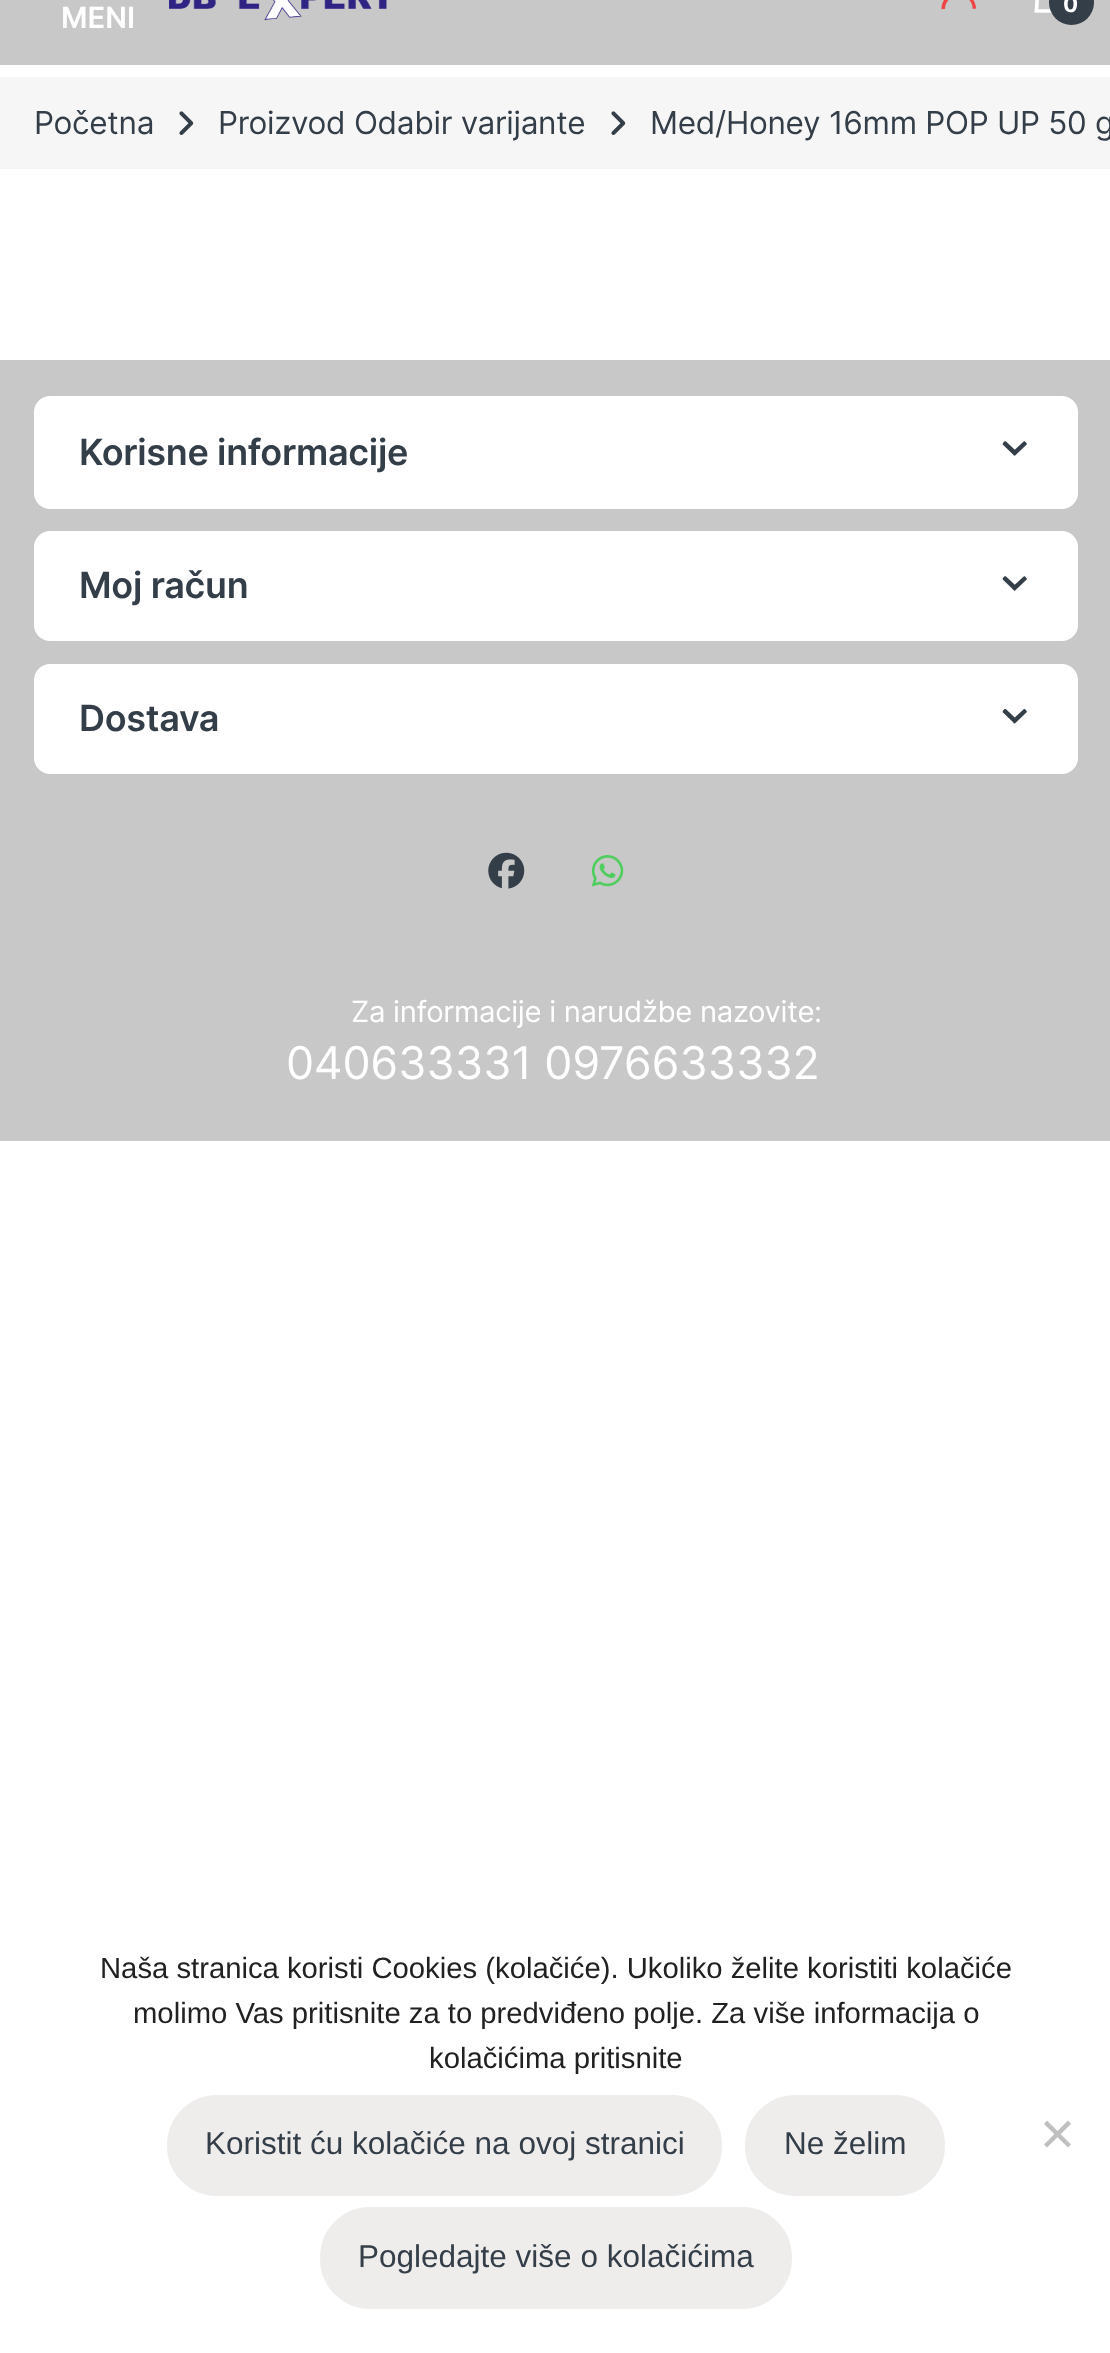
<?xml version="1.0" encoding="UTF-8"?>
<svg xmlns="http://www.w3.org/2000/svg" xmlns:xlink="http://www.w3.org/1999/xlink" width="1110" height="2353">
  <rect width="100%" height="100%" fill="#ffffff" />
  <rect width="1110" height="65" fill="#c8c8c8" />
  <image x="169" y="0" width="218" height="21" xlink:href="image1.png" />
  <image x="941" y="0" width="35" height="10" xlink:href="image2.png" />
  <image x="1034" y="0" width="18" height="13" xlink:href="image3.png" />
  <circle cx="1071.5" cy="2.5" r="22.5" fill="#333e48" />
  <rect y="77" width="1110" height="92" fill="#f7f6f6" />
  <image x="179" y="111" width="15" height="24" xlink:href="image4.png" />
  <image x="611" y="111" width="15" height="24" xlink:href="image4.png" />
  <rect y="360" width="1110" height="781" fill="#c8c8c8" />
  <rect x="34" y="396" width="1044" height="113" rx="16" fill="#ffffff" />
  <image x="1002" y="441" width="25" height="15" xlink:href="image5.png" />
  <rect x="34" y="531" width="1044" height="110" rx="16" fill="#ffffff" />
  <image x="1002" y="576" width="25" height="15" xlink:href="image5.png" />
  <rect x="34" y="664" width="1044" height="110" rx="16" fill="#ffffff" />
  <image x="1002" y="709" width="25" height="15" xlink:href="image6.png" />
  <image x="488" y="852" width="37" height="37" xlink:href="image7.png" />
  <image x="591" y="855" width="33" height="32" xlink:href="image8.png" />
  <rect x="168" y="2096" width="553" height="99" rx="49" fill="#efecec" stroke="#efecec" stroke-width="2" />
  <rect x="746" y="2096" width="198" height="99" rx="49" fill="#efecec" stroke="#efecec" stroke-width="2" />
  <rect x="321" y="2208" width="470" height="100" rx="49" fill="#efecec" stroke="#efecec" stroke-width="2" />
  <path d="M 1068 2120.5 l 3 3.5 l -24 23.5 l -3 -3 z" fill="#c0c0c0" />
  <path d="M 1044 2124 l 3 -3.5 l 24 24 l -3 3 z" fill="#c0c0c0" />
  <text x="61" y="28" style="font-family: Inter; font-size: 29.25px; font-weight: 600; fill: #ffffff">MENI</text>
  <text x="1063" y="12" style="font-family: Inter; font-size: 22px; font-weight: bold; letter-spacing: -0.3px; fill: #ffffff">0</text>
  <text x="34" y="134" style="font-family: Inter; font-size: 31.5px; letter-spacing: -0.3px; fill: #333e48">Početna</text>
  <text x="218" y="134" style="font-family: Inter; font-size: 31.5px; letter-spacing: -0.3px; fill: #333e48">Proizvod Odabir varijante</text>
  <text x="650" y="134" style="font-family: Inter; font-size: 31.5px; letter-spacing: -0.3px; fill: #333e48">Med/Honey 16mm POP UP 50 g</text>
  <text x="79" y="465" style="font-family: Inter; font-size: 36px; font-weight: 600; letter-spacing: -0.3px; fill: #333e48">Korisne informacije</text>
  <text x="79" y="598" style="font-family: Inter; font-size: 36px; font-weight: 600; letter-spacing: -0.3px; fill: #333e48">Moj račun</text>
  <text x="79" y="731" style="font-family: Inter; font-size: 36px; font-weight: 600; letter-spacing: -0.3px; fill: #333e48">Dostava</text>
  <text x="351" y="1022" style="font-family: Inter; font-size: 29.25px; letter-spacing: -0.3px; fill: #ffffff">Za informacije i narudžbe nazovite:</text>
  <text x="286" y="1079" style="font-family: Inter; font-size: 45px; letter-spacing: -0.3px; fill: #ffffff">040633331 0976633332</text>
  <text x="100" y="1978" style="font-family: Liberation Sans; font-size: 29.25px; fill: #212121">Naša stranica koristi Cookies (kolačiće). Ukoliko želite koristiti kolačiće</text>
  <text x="133" y="2023" style="font-family: Liberation Sans; font-size: 29.25px; fill: #212121">molimo Vas pritisnite za to predviđeno polje. Za više informacija o</text>
  <text x="429" y="2068" style="font-family: Liberation Sans; font-size: 29.25px; fill: #212121">kolačićima pritisnite</text>
  <text x="205" y="2154" style="font-family: Liberation Sans; font-size: 31.5px; fill: #333e48">Koristit ću kolačiće na ovoj stranici</text>
  <text x="784" y="2154" style="font-family: Liberation Sans; font-size: 31.5px; fill: #333e48">Ne želim</text>
  <text x="358" y="2267" style="font-family: Liberation Sans; font-size: 31.5px; fill: #333e48">Pogledajte više o kolačićima</text>
</svg>
